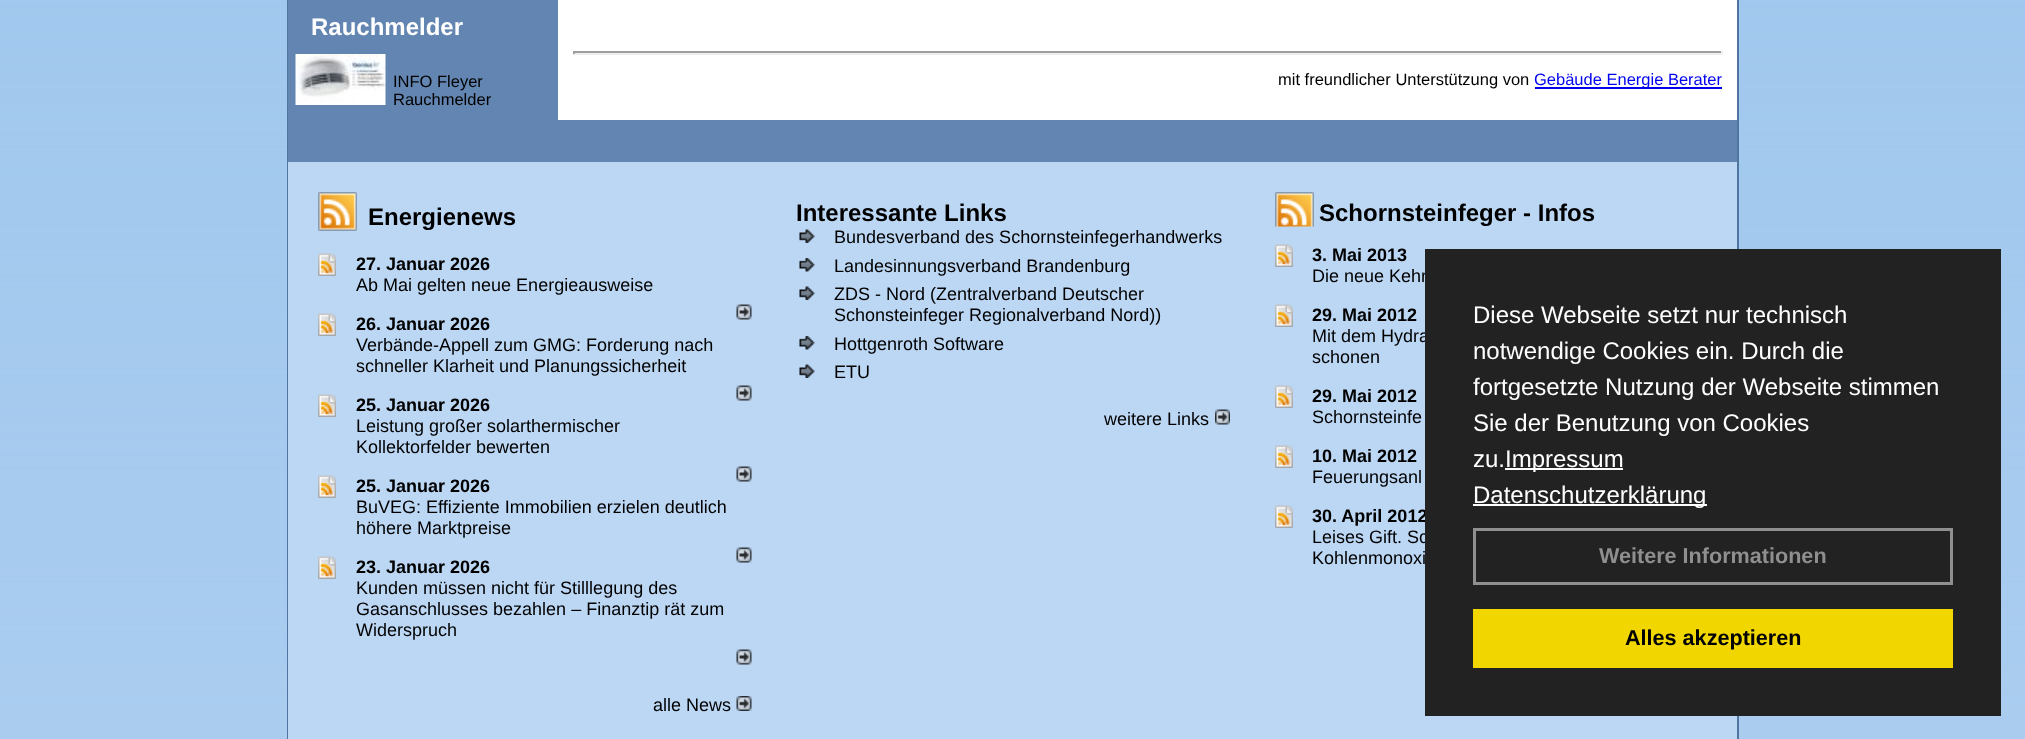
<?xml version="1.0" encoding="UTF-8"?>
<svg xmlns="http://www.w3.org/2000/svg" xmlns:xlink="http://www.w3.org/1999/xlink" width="2025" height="739">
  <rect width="100%" height="100%" fill="#ffffff" />
  <image x="0" y="0" width="2025" height="739" xlink:href="image1.png" />
  <rect x="1737" width="2" height="739" fill="#5075a1" />
  <rect x="287" width="1" height="739" fill="#5075a1" />
  <rect x="288" width="1449" height="162" fill="#6385b1" />
  <image x="295" y="54" width="91" height="51" xlink:href="image2.png" />
  <rect x="558" width="1179" height="120" fill="#ffffff" />
  <rect x="573" y="51" width="1149" height="2" fill="#9f9f9f" />
  <rect x="1721" y="51" width="2" height="3" fill="#eeeeee" />
  <rect x="573" y="53" width="1149" height="2" fill="#eeeeee" />
  <rect x="573" y="51" width="2" height="3" fill="#9f9f9f" />
  <rect x="1535" y="87" width="187" height="2" fill="#0000ee" />
  <rect x="288" y="162" width="1449" height="577" fill="#bcd7f4" />
  <image x="318" y="192" width="39" height="39" xlink:href="image3.png" />
  <image x="318" y="253" width="18" height="23" xlink:href="image4.png" />
  <image x="736" y="304" width="16" height="16" xlink:href="image5.png" />
  <image x="318" y="313" width="18" height="23" xlink:href="image4.png" />
  <image x="736" y="385" width="16" height="16" xlink:href="image5.png" />
  <image x="318" y="394" width="18" height="23" xlink:href="image4.png" />
  <image x="736" y="466" width="16" height="16" xlink:href="image5.png" />
  <image x="318" y="475" width="18" height="23" xlink:href="image4.png" />
  <image x="736" y="547" width="16" height="16" xlink:href="image5.png" />
  <image x="318" y="556" width="18" height="23" xlink:href="image4.png" />
  <image x="736" y="649" width="16" height="16" xlink:href="image5.png" />
  <image x="736" y="696" width="16" height="15" xlink:href="image6.png" />
  <image x="799" y="229" width="16" height="14" xlink:href="image7.png" />
  <image x="799" y="258" width="16" height="14" xlink:href="image8.png" />
  <image x="799" y="286" width="16" height="14" xlink:href="image7.png" />
  <image x="799" y="336" width="16" height="14" xlink:href="image8.png" />
  <image x="799" y="364" width="16" height="14" xlink:href="image7.png" />
  <image x="1215" y="409" width="15" height="16" xlink:href="image9.png" />
  <image x="1275" y="192" width="39" height="35" xlink:href="image10.png" />
  <image x="1275" y="244" width="18" height="23" xlink:href="image11.png" />
  <image x="1275" y="304" width="18" height="23" xlink:href="image11.png" />
  <image x="1275" y="385" width="18" height="23" xlink:href="image11.png" />
  <image x="1275" y="445" width="18" height="23" xlink:href="image11.png" />
  <image x="1275" y="505" width="18" height="23" xlink:href="image11.png" />
  <text x="311" y="35" style="font-family: Liberation Sans; font-size: 24px; font-weight: bold; fill: #ffffff">Rauchmelder</text>
  <text x="393" y="87" style="font-family: Liberation Sans; font-size: 16.5px; fill: #000000">INFO Fleyer</text>
  <text x="393" y="105" style="font-family: Liberation Sans; font-size: 16.5px; fill: #000000">Rauchmelder</text>
  <text x="1278" y="85" style="font-family: Liberation Sans; font-size: 16.5px; fill: #000000">mit freundlicher Unterstützung von</text>
  <text x="1534" y="85" style="font-family: Liberation Sans; font-size: 16.5px; fill: #0000ee">Gebäude Energie Berater</text>
  <text x="368" y="225" style="font-family: Liberation Sans; font-size: 24px; font-weight: bold; fill: #000000">Energienews</text>
  <text x="356" y="270" style="font-family: Liberation Sans; font-size: 18px; font-weight: bold; fill: #000000">27. Januar 2026</text>
  <text x="356" y="291" style="font-family: Liberation Sans; font-size: 18px; fill: #000000">Ab Mai gelten neue Energieausweise</text>
  <text x="356" y="330" style="font-family: Liberation Sans; font-size: 18px; font-weight: bold; fill: #000000">26. Januar 2026</text>
  <text x="356" y="351" style="font-family: Liberation Sans; font-size: 18px; fill: #000000">Verbände-Appell zum GMG: Forderung nach</text>
  <text x="356" y="372" style="font-family: Liberation Sans; font-size: 18px; fill: #000000">schneller Klarheit und Planungssicherheit</text>
  <text x="356" y="411" style="font-family: Liberation Sans; font-size: 18px; font-weight: bold; fill: #000000">25. Januar 2026</text>
  <text x="356" y="432" style="font-family: Liberation Sans; font-size: 18px; fill: #000000">Leistung großer solarthermischer</text>
  <text x="356" y="453" style="font-family: Liberation Sans; font-size: 18px; fill: #000000">Kollektorfelder bewerten</text>
  <text x="356" y="492" style="font-family: Liberation Sans; font-size: 18px; font-weight: bold; fill: #000000">25. Januar 2026</text>
  <text x="356" y="513" style="font-family: Liberation Sans; font-size: 18px; fill: #000000">BuVEG: Effiziente Immobilien erzielen deutlich</text>
  <text x="356" y="534" style="font-family: Liberation Sans; font-size: 18px; fill: #000000">höhere Marktpreise</text>
  <text x="356" y="573" style="font-family: Liberation Sans; font-size: 18px; font-weight: bold; fill: #000000">23. Januar 2026</text>
  <text x="356" y="594" style="font-family: Liberation Sans; font-size: 18px; fill: #000000">Kunden müssen nicht für Stilllegung des</text>
  <text x="356" y="615" style="font-family: Liberation Sans; font-size: 18px; fill: #000000">Gasanschlusses bezahlen – Finanztip rät zum</text>
  <text x="356" y="636" style="font-family: Liberation Sans; font-size: 18px; fill: #000000">Widerspruch</text>
  <text x="653" y="711" style="font-family: Liberation Sans; font-size: 18px; fill: #000000">alle News</text>
  <text x="796" y="221" style="font-family: Liberation Sans; font-size: 24px; font-weight: bold; fill: #000000">Interessante Links</text>
  <text x="834" y="243" style="font-family: Liberation Sans; font-size: 18px; fill: #000000">Bundesverband des Schornsteinfegerhandwerks</text>
  <text x="834" y="272" style="font-family: Liberation Sans; font-size: 18px; fill: #000000">Landesinnungsverband Brandenburg</text>
  <text x="834" y="300" style="font-family: Liberation Sans; font-size: 18px; fill: #000000">ZDS - Nord (Zentralverband Deutscher</text>
  <text x="834" y="321" style="font-family: Liberation Sans; font-size: 18px; fill: #000000">Schonsteinfeger Regionalverband Nord))</text>
  <text x="834" y="350" style="font-family: Liberation Sans; font-size: 18px; fill: #000000">Hottgenroth Software</text>
  <text x="834" y="378" style="font-family: Liberation Sans; font-size: 18px; fill: #000000">ETU</text>
  <text x="1104" y="425" style="font-family: Liberation Sans; font-size: 18px; fill: #000000">weitere Links</text>
  <text x="1319" y="221" style="font-family: Liberation Sans; font-size: 24px; font-weight: bold; fill: #000000">Schornsteinfeger - Infos</text>
  <text x="1312" y="261" style="font-family: Liberation Sans; font-size: 18px; font-weight: bold; fill: #000000">3. Mai 2013</text>
  <text x="1312" y="282" style="font-family: Liberation Sans; font-size: 18px; fill: #000000">Die neue Kehr</text>
  <text x="1312" y="321" style="font-family: Liberation Sans; font-size: 18px; font-weight: bold; fill: #000000">29. Mai 2012</text>
  <text x="1312" y="342" style="font-family: Liberation Sans; font-size: 18px; fill: #000000">Mit dem Hydra</text>
  <text x="1312" y="363" style="font-family: Liberation Sans; font-size: 18px; fill: #000000">schonen</text>
  <text x="1312" y="402" style="font-family: Liberation Sans; font-size: 18px; font-weight: bold; fill: #000000">29. Mai 2012</text>
  <text x="1312" y="423" style="font-family: Liberation Sans; font-size: 18px; fill: #000000">Schornsteinfe</text>
  <text x="1312" y="462" style="font-family: Liberation Sans; font-size: 18px; font-weight: bold; fill: #000000">10. Mai 2012</text>
  <text x="1312" y="483" style="font-family: Liberation Sans; font-size: 18px; fill: #000000">Feuerungsanl</text>
  <text x="1312" y="522" style="font-family: Liberation Sans; font-size: 18px; font-weight: bold; fill: #000000">30. April 2012</text>
  <text x="1312" y="543" style="font-family: Liberation Sans; font-size: 18px; fill: #000000">Leises Gift. Sc</text>
  <text x="1312" y="564" style="font-family: Liberation Sans; font-size: 18px; fill: #000000">Kohlenmonoxi</text>
  <rect x="1425" y="249" width="576" height="467" fill="#222222" />
  <text x="1473" y="323" style="font-family: Liberation Sans; font-size: 24px; fill: #ffffff">Diese Webseite setzt nur technisch</text>
  <text x="1473" y="359" style="font-family: Liberation Sans; font-size: 24px; fill: #ffffff">notwendige Cookies ein. Durch die</text>
  <text x="1473" y="395" style="font-family: Liberation Sans; font-size: 24px; fill: #ffffff">fortgesetzte Nutzung der Webseite stimmen</text>
  <text x="1473" y="431" style="font-family: Liberation Sans; font-size: 24px; fill: #ffffff">Sie der Benutzung von Cookies</text>
  <text x="1473" y="467" style="font-family: Liberation Sans; font-size: 24px; fill: #ffffff">zu.</text>
  <rect x="1505" y="468" width="118" height="2" fill="#ffffff" />
  <text x="1505" y="467" style="font-family: Liberation Sans; font-size: 24px; fill: #ffffff">Impressum</text>
  <rect x="1473" y="504" width="234" height="2" fill="#ffffff" />
  <text x="1473" y="503" style="font-family: Liberation Sans; font-size: 24px; fill: #ffffff">Datenschutzerklärung</text>
  <rect x="1474.5" y="529.5" width="477" height="54" fill="none" stroke="#8f8f8f" stroke-width="3" />
  <text x="1599" y="563" style="font-family: Liberation Sans; font-size: 21.6px; font-weight: bold; fill: #8f8f8f">Weitere Informationen</text>
  <rect x="1473" y="609" width="480" height="59" fill="#f1d600" />
  <text x="1625" y="645" style="font-family: Liberation Sans; font-size: 21.6px; font-weight: bold; fill: #000000">Alles akzeptieren</text>
</svg>
